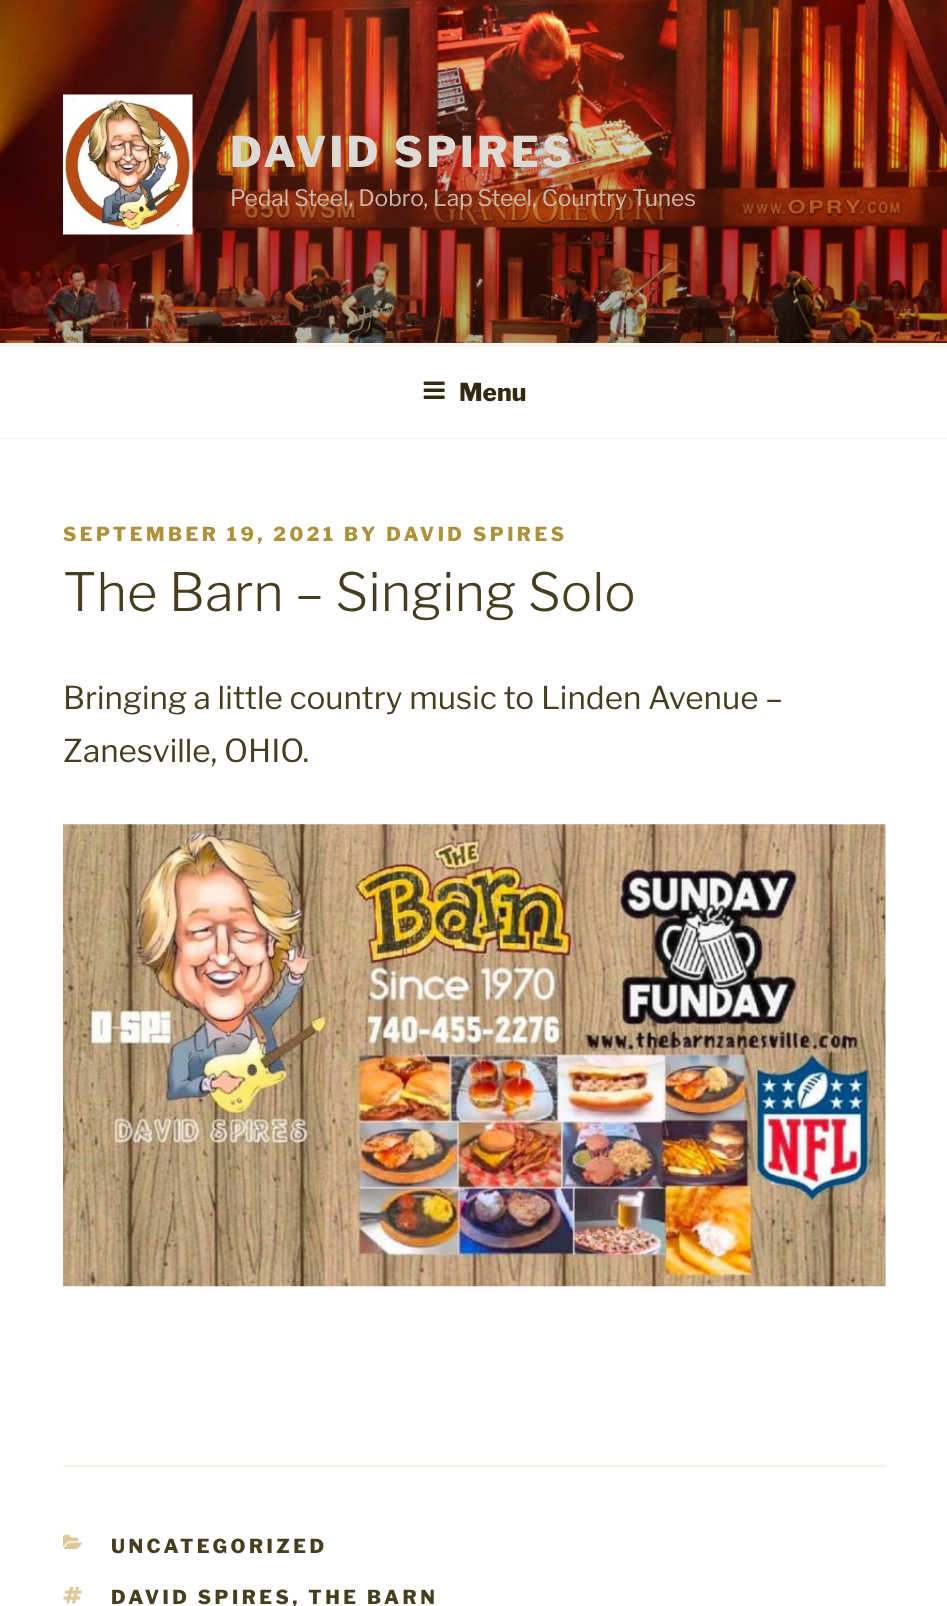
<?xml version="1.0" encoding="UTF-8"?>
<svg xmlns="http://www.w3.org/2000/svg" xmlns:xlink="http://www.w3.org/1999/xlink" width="947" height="1606">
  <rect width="100%" height="100%" fill="#fcfbf7" />
  <image x="0" y="0" width="947" height="343" xlink:href="image1.png" />
  <image x="63" y="94" width="130" height="141" xlink:href="image2.png" />
  <rect y="347" width="947" height="91" fill="#ffffff" />
  <rect y="345" width="947" height="2" fill="#f6f1e4" />
  <rect y="438" width="947" height="1" fill="#f6f1e4" />
  <image x="423" y="381" width="22" height="18" xlink:href="image3.png" />
  <rect y="439" width="947" height="1167" fill="#ffffff" />
  <image x="63" y="824" width="823" height="463" xlink:href="image4.png" />
  <rect x="63" y="1465" width="823" height="2" fill="#f6f1e4" />
  <image x="63" y="1534" width="19" height="16" xlink:href="image5.png" />
  <image x="63" y="1586" width="19" height="18" xlink:href="image6.png" />
  <text x="230" y="167" style="font-family: Libre Franklin; font-size: 42px; font-weight: 800; letter-spacing: 3.4px; fill: #dddad4">DAVID SPIRES</text>
  <text x="230" y="206" style="font-family: Libre Franklin; font-size: 22.75px; fill: #cbb8ad">Pedal Steel, Dobro, Lap Steel, Country Tunes</text>
  <text x="459" y="401" style="font-family: Libre Franklin; font-size: 24.5px; font-weight: 800; fill: #322911">Menu</text>
  <text x="63" y="541" style="font-family: Libre Franklin; font-size: 19.25px; font-weight: 800; letter-spacing: 3.5px; fill: #b0913b">SEPTEMBER 19, 2021 BY DAVID SPIRES</text>
  <text x="63" y="611" style="font-family: Libre Franklin; font-size: 52.5px; font-weight: 300; fill: #473d1f">The Barn – Singing Solo</text>
  <text x="63" y="709" style="font-family: Libre Franklin; font-size: 31.5px; fill: #473d1f">Bringing a little country music to Linden Avenue –</text>
  <text x="63" y="762" style="font-family: Libre Franklin; font-size: 31.5px; fill: #473d1f">Zanesville, OHIO.</text>
  <text x="111" y="1553" style="font-family: Libre Franklin; font-size: 19.25px; font-weight: 800; letter-spacing: 3.5px; fill: #473d1f">UNCATEGORIZED</text>
  <text x="111" y="1604" style="font-family: Libre Franklin; font-size: 19.25px; font-weight: 800; letter-spacing: 3.5px; fill: #473d1f">DAVID SPIRES, THE BARN</text>
</svg>
